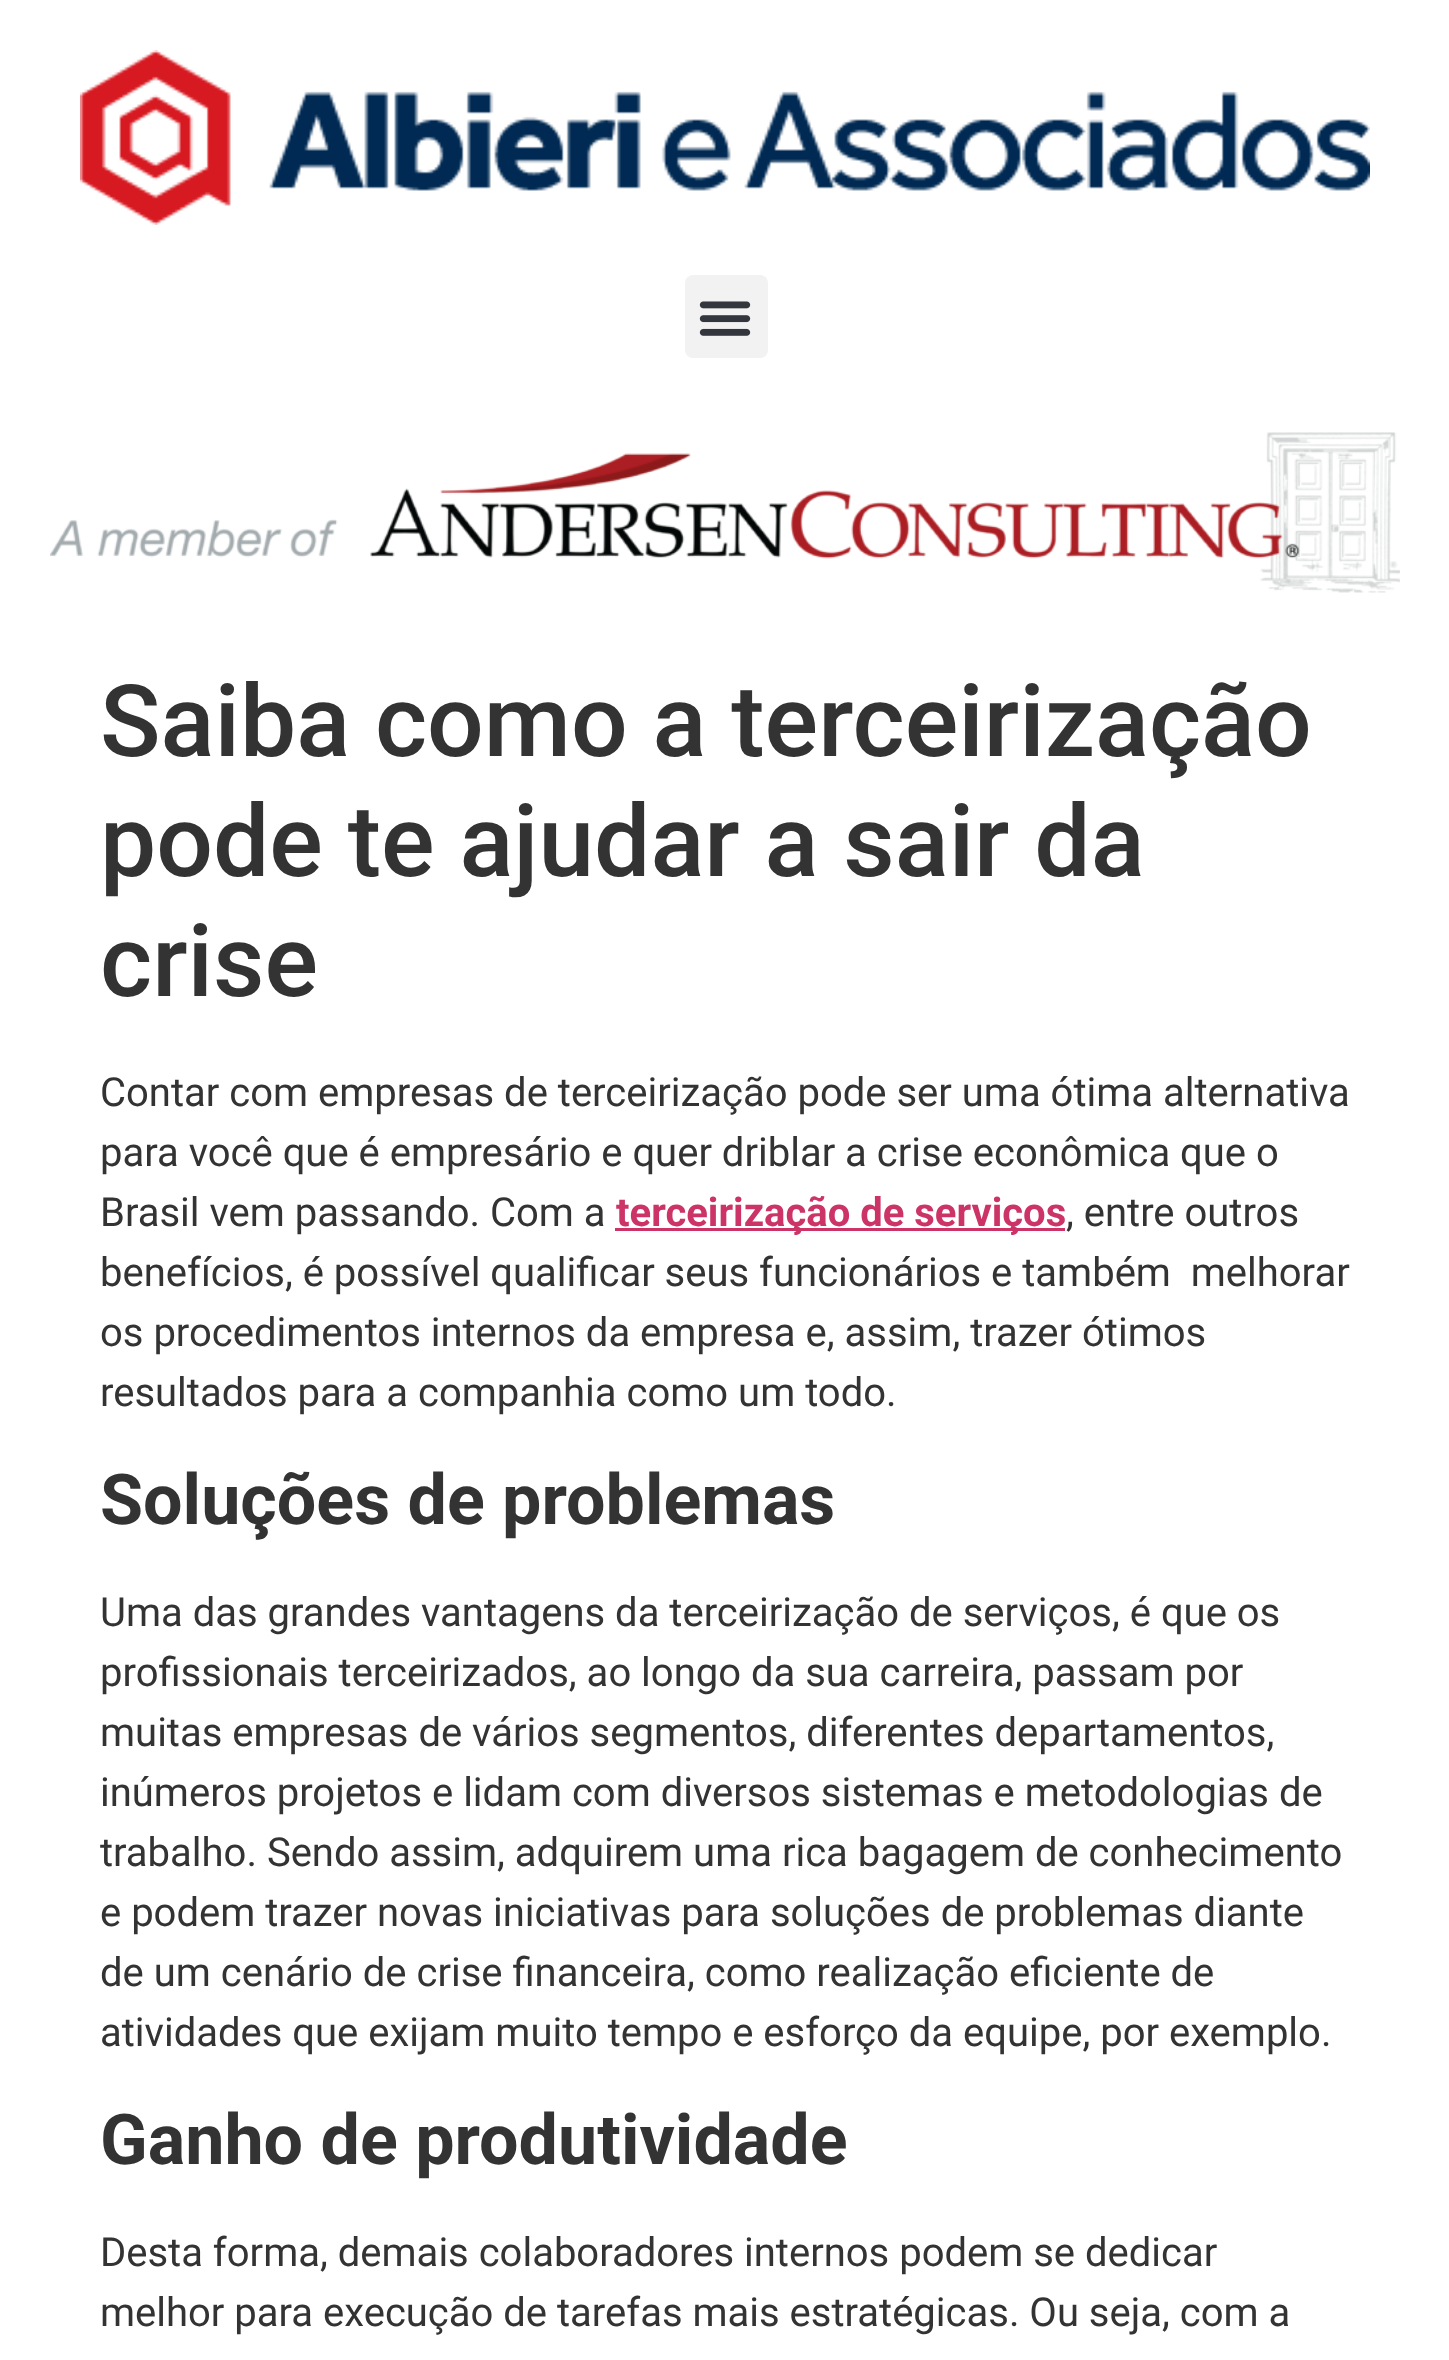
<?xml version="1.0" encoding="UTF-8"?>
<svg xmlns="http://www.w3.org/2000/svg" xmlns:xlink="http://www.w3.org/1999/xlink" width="1449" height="2360">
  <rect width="100%" height="100%" fill="#ffffff" />
  <image x="80" y="50" width="1290" height="175" xlink:href="image1.png" />
  <rect x="685" y="275" width="83" height="83" rx="8" fill="#f2f2f2" />
  <image x="699" y="301" width="52" height="35" xlink:href="image2.png" />
  <image x="50" y="432" width="1350" height="161" xlink:href="image3.png" />
  <rect x="615" y="1228" width="450" height="3" fill="#cc3366" />
  <text x="100" y="756" style="font-family: Roboto; font-size: 100px; font-weight: 500; fill: #333333">Saiba como a terceirização</text>
  <text x="100" y="876" style="font-family: Roboto; font-size: 100px; font-weight: 500; fill: #333333">pode te ajudar a sair da</text>
  <text x="100" y="996" style="font-family: Roboto; font-size: 100px; font-weight: 500; fill: #333333">crise</text>
  <text x="100" y="1106" style="font-family: Roboto; font-size: 40px; fill: #333333">Contar com empresas de terceirização pode ser uma ótima alternativa</text>
  <text x="100" y="1166" style="font-family: Roboto; font-size: 40px; fill: #333333">para você que é empresário e quer driblar a crise econômica que o</text>
  <text x="100" y="1226" style="font-family: Roboto; font-size: 40px; fill: #333333">Brasil vem passando. Com a</text>
  <text x="616" y="1226" style="font-family: Roboto; font-size: 40px; font-weight: bold; fill: #cc3366">terceirização de serviços</text>
  <text x="1066" y="1226" style="font-family: Roboto; font-size: 40px; fill: #333333">, entre outros</text>
  <text x="100" y="1286" style="font-family: Roboto; font-size: 40px; fill: #333333" xml:space="preserve">benefícios, é possível qualificar seus funcionários e também  melhorar</text>
  <text x="100" y="1346" style="font-family: Roboto; font-size: 40px; fill: #333333">os procedimentos internos da empresa e, assim, trazer ótimos</text>
  <text x="100" y="1406" style="font-family: Roboto; font-size: 40px; fill: #333333">resultados para a companhia como um todo.</text>
  <text x="100" y="1524" style="font-family: Roboto; font-size: 70px; font-weight: bold; fill: #333333">Soluções de problemas</text>
  <text x="100" y="1626" style="font-family: Roboto; font-size: 40px; fill: #333333">Uma das grandes vantagens da terceirização de serviços, é que os</text>
  <text x="100" y="1686" style="font-family: Roboto; font-size: 40px; fill: #333333">profissionais terceirizados, ao longo da sua carreira, passam por</text>
  <text x="100" y="1746" style="font-family: Roboto; font-size: 40px; fill: #333333">muitas empresas de vários segmentos, diferentes departamentos,</text>
  <text x="100" y="1806" style="font-family: Roboto; font-size: 40px; fill: #333333">inúmeros projetos e lidam com diversos sistemas e metodologias de</text>
  <text x="100" y="1866" style="font-family: Roboto; font-size: 40px; fill: #333333">trabalho. Sendo assim, adquirem uma rica bagagem de conhecimento</text>
  <text x="100" y="1926" style="font-family: Roboto; font-size: 40px; fill: #333333">e podem trazer novas iniciativas para soluções de problemas diante</text>
  <text x="100" y="1986" style="font-family: Roboto; font-size: 40px; fill: #333333">de um cenário de crise financeira, como realização eficiente de</text>
  <text x="100" y="2046" style="font-family: Roboto; font-size: 40px; fill: #333333">atividades que exijam muito tempo e esforço da equipe, por exemplo.</text>
  <text x="100" y="2164" style="font-family: Roboto; font-size: 70px; font-weight: bold; fill: #333333">Ganho de produtividade</text>
  <text x="100" y="2266" style="font-family: Roboto; font-size: 40px; fill: #333333">Desta forma, demais colaboradores internos podem se dedicar</text>
  <text x="100" y="2326" style="font-family: Roboto; font-size: 40px; fill: #333333">melhor para execução de tarefas mais estratégicas. Ou seja, com a</text>
</svg>
